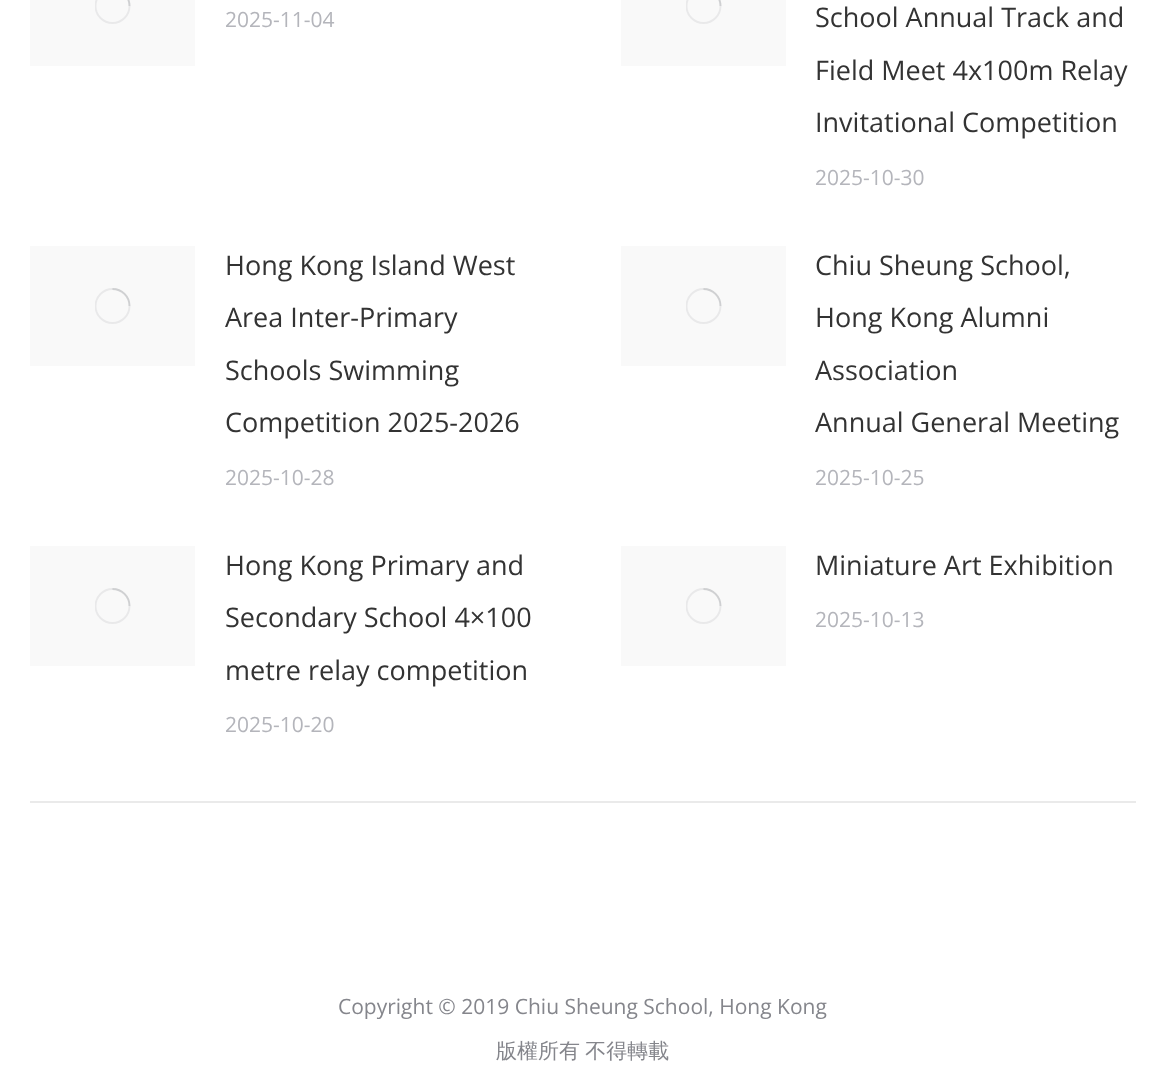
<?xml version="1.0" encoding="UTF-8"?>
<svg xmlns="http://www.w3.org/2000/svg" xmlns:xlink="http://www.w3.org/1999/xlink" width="1165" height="1085">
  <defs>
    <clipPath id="clip1"><rect x="95" width="36" height="24" /></clipPath>
    <clipPath id="clip2"><rect x="686" width="36" height="24" /></clipPath>
    <clipPath id="clip3"><rect x="95" y="288" width="36" height="36" /></clipPath>
    <clipPath id="clip4"><rect x="686" y="288" width="36" height="36" /></clipPath>
    <clipPath id="clip5"><rect x="95" y="588" width="36" height="36" /></clipPath>
    <clipPath id="clip6"><rect x="686" y="588" width="36" height="36" /></clipPath>
  </defs>
  <rect width="100%" height="100%" fill="#ffffff" />
  <rect x="30" y="801" width="1106" height="2" fill="#eaeaea" />
  <rect x="30" width="165" height="66" fill="#f9f9f9" />
  <g clip-path="url(#clip1)">
    <circle cx="112.5" cy="6" r="17" fill="none" stroke="#e9e9ea" stroke-width="1.9" />
  </g>
  <path d="M 129.5 6 c 0 -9.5 -7.5 -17 -17 -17" fill="none" stroke="#85868c" stroke-opacity="0.25" stroke-width="1.9" />
  <rect x="621" width="165" height="66" fill="#f9f9f9" />
  <g clip-path="url(#clip2)">
    <circle cx="703.5" cy="6" r="17" fill="none" stroke="#e9e9ea" stroke-width="1.9" />
  </g>
  <path d="M 720.5 6 c 0 -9.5 -7.5 -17 -17 -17" fill="none" stroke="#85868c" stroke-opacity="0.25" stroke-width="1.9" />
  <rect x="30" y="246" width="165" height="120" fill="#f9f9f9" />
  <g clip-path="url(#clip3)">
    <circle cx="112.5" cy="306" r="17" fill="none" stroke="#e9e9ea" stroke-width="1.9" />
  </g>
  <path d="M 129.5 306 c 0 -9.5 -7.5 -17 -17 -17" fill="none" stroke="#85868c" stroke-opacity="0.25" stroke-width="1.9" />
  <rect x="621" y="246" width="165" height="120" fill="#f9f9f9" />
  <g clip-path="url(#clip4)">
    <circle cx="703.5" cy="306" r="17" fill="none" stroke="#e9e9ea" stroke-width="1.9" />
  </g>
  <path d="M 720.5 306 c 0 -9.5 -7.5 -17 -17 -17" fill="none" stroke="#85868c" stroke-opacity="0.25" stroke-width="1.9" />
  <rect x="30" y="546" width="165" height="120" fill="#f9f9f9" />
  <g clip-path="url(#clip5)">
    <circle cx="112.5" cy="606" r="17" fill="none" stroke="#e9e9ea" stroke-width="1.9" />
  </g>
  <path d="M 129.5 606 c 0 -9.5 -7.5 -17 -17 -17" fill="none" stroke="#85868c" stroke-opacity="0.25" stroke-width="1.9" />
  <rect x="621" y="546" width="165" height="120" fill="#f9f9f9" />
  <g clip-path="url(#clip6)">
    <circle cx="703.5" cy="606" r="17" fill="none" stroke="#e9e9ea" stroke-width="1.9" />
  </g>
  <path d="M 720.5 606 c 0 -9.5 -7.5 -17 -17 -17" fill="none" stroke="#85868c" stroke-opacity="0.25" stroke-width="1.9" />
  <text x="225" y="27" style="font-family: Open Sans; font-size: 21px; fill: #b4b5bb">2025-11-04</text>
  <text x="815" y="27" style="font-family: Open Sans; font-size: 27px; fill: #333333">School Annual Track and</text>
  <text x="815" y="80" style="font-family: Open Sans; font-size: 27px; fill: #333333">Field Meet 4x100m Relay</text>
  <text x="815" y="132" style="font-family: Open Sans; font-size: 27px; fill: #333333">Invitational Competition</text>
  <text x="815" y="185" style="font-family: Open Sans; font-size: 21px; fill: #b4b5bb">2025-10-30</text>
  <text x="225" y="275" style="font-family: Open Sans; font-size: 27px; fill: #333333">Hong Kong Island West</text>
  <text x="225" y="327" style="font-family: Open Sans; font-size: 27px; fill: #333333">Area Inter-Primary</text>
  <text x="225" y="380" style="font-family: Open Sans; font-size: 27px; fill: #333333">Schools Swimming</text>
  <text x="225" y="432" style="font-family: Open Sans; font-size: 27px; fill: #333333">Competition 2025-2026</text>
  <text x="225" y="485" style="font-family: Open Sans; font-size: 21px; fill: #b4b5bb">2025-10-28</text>
  <text x="815" y="275" style="font-family: Open Sans; font-size: 27px; fill: #333333">Chiu Sheung School,</text>
  <text x="815" y="327" style="font-family: Open Sans; font-size: 27px; fill: #333333">Hong Kong Alumni</text>
  <text x="815" y="380" style="font-family: Open Sans; font-size: 27px; fill: #333333">Association</text>
  <text x="815" y="432" style="font-family: Open Sans; font-size: 27px; fill: #333333">Annual General Meeting</text>
  <text x="815" y="485" style="font-family: Open Sans; font-size: 21px; fill: #b4b5bb">2025-10-25</text>
  <text x="225" y="575" style="font-family: Open Sans; font-size: 27px; fill: #333333">Hong Kong Primary and</text>
  <text x="225" y="627" style="font-family: Open Sans; font-size: 27px; fill: #333333">Secondary School 4×100</text>
  <text x="225" y="680" style="font-family: Open Sans; font-size: 27px; fill: #333333">metre relay competition</text>
  <text x="225" y="732" style="font-family: Open Sans; font-size: 21px; fill: #b4b5bb">2025-10-20</text>
  <text x="815" y="575" style="font-family: Open Sans; font-size: 27px; fill: #333333">Miniature Art Exhibition</text>
  <text x="815" y="627" style="font-family: Open Sans; font-size: 21px; fill: #b4b5bb">2025-10-13</text>
  <text x="338" y="1014" style="font-family: Open Sans; font-size: 21px; fill: #85868c">Copyright © 2019 Chiu Sheung School, Hong Kong</text>
  <text x="496" y="1058" word-spacing="-1" style="font-family: WenQuanYi Zen Hei; font-size: 21px; font-weight: 500; fill: #85868c">版權所有 不得轉載</text>
</svg>
